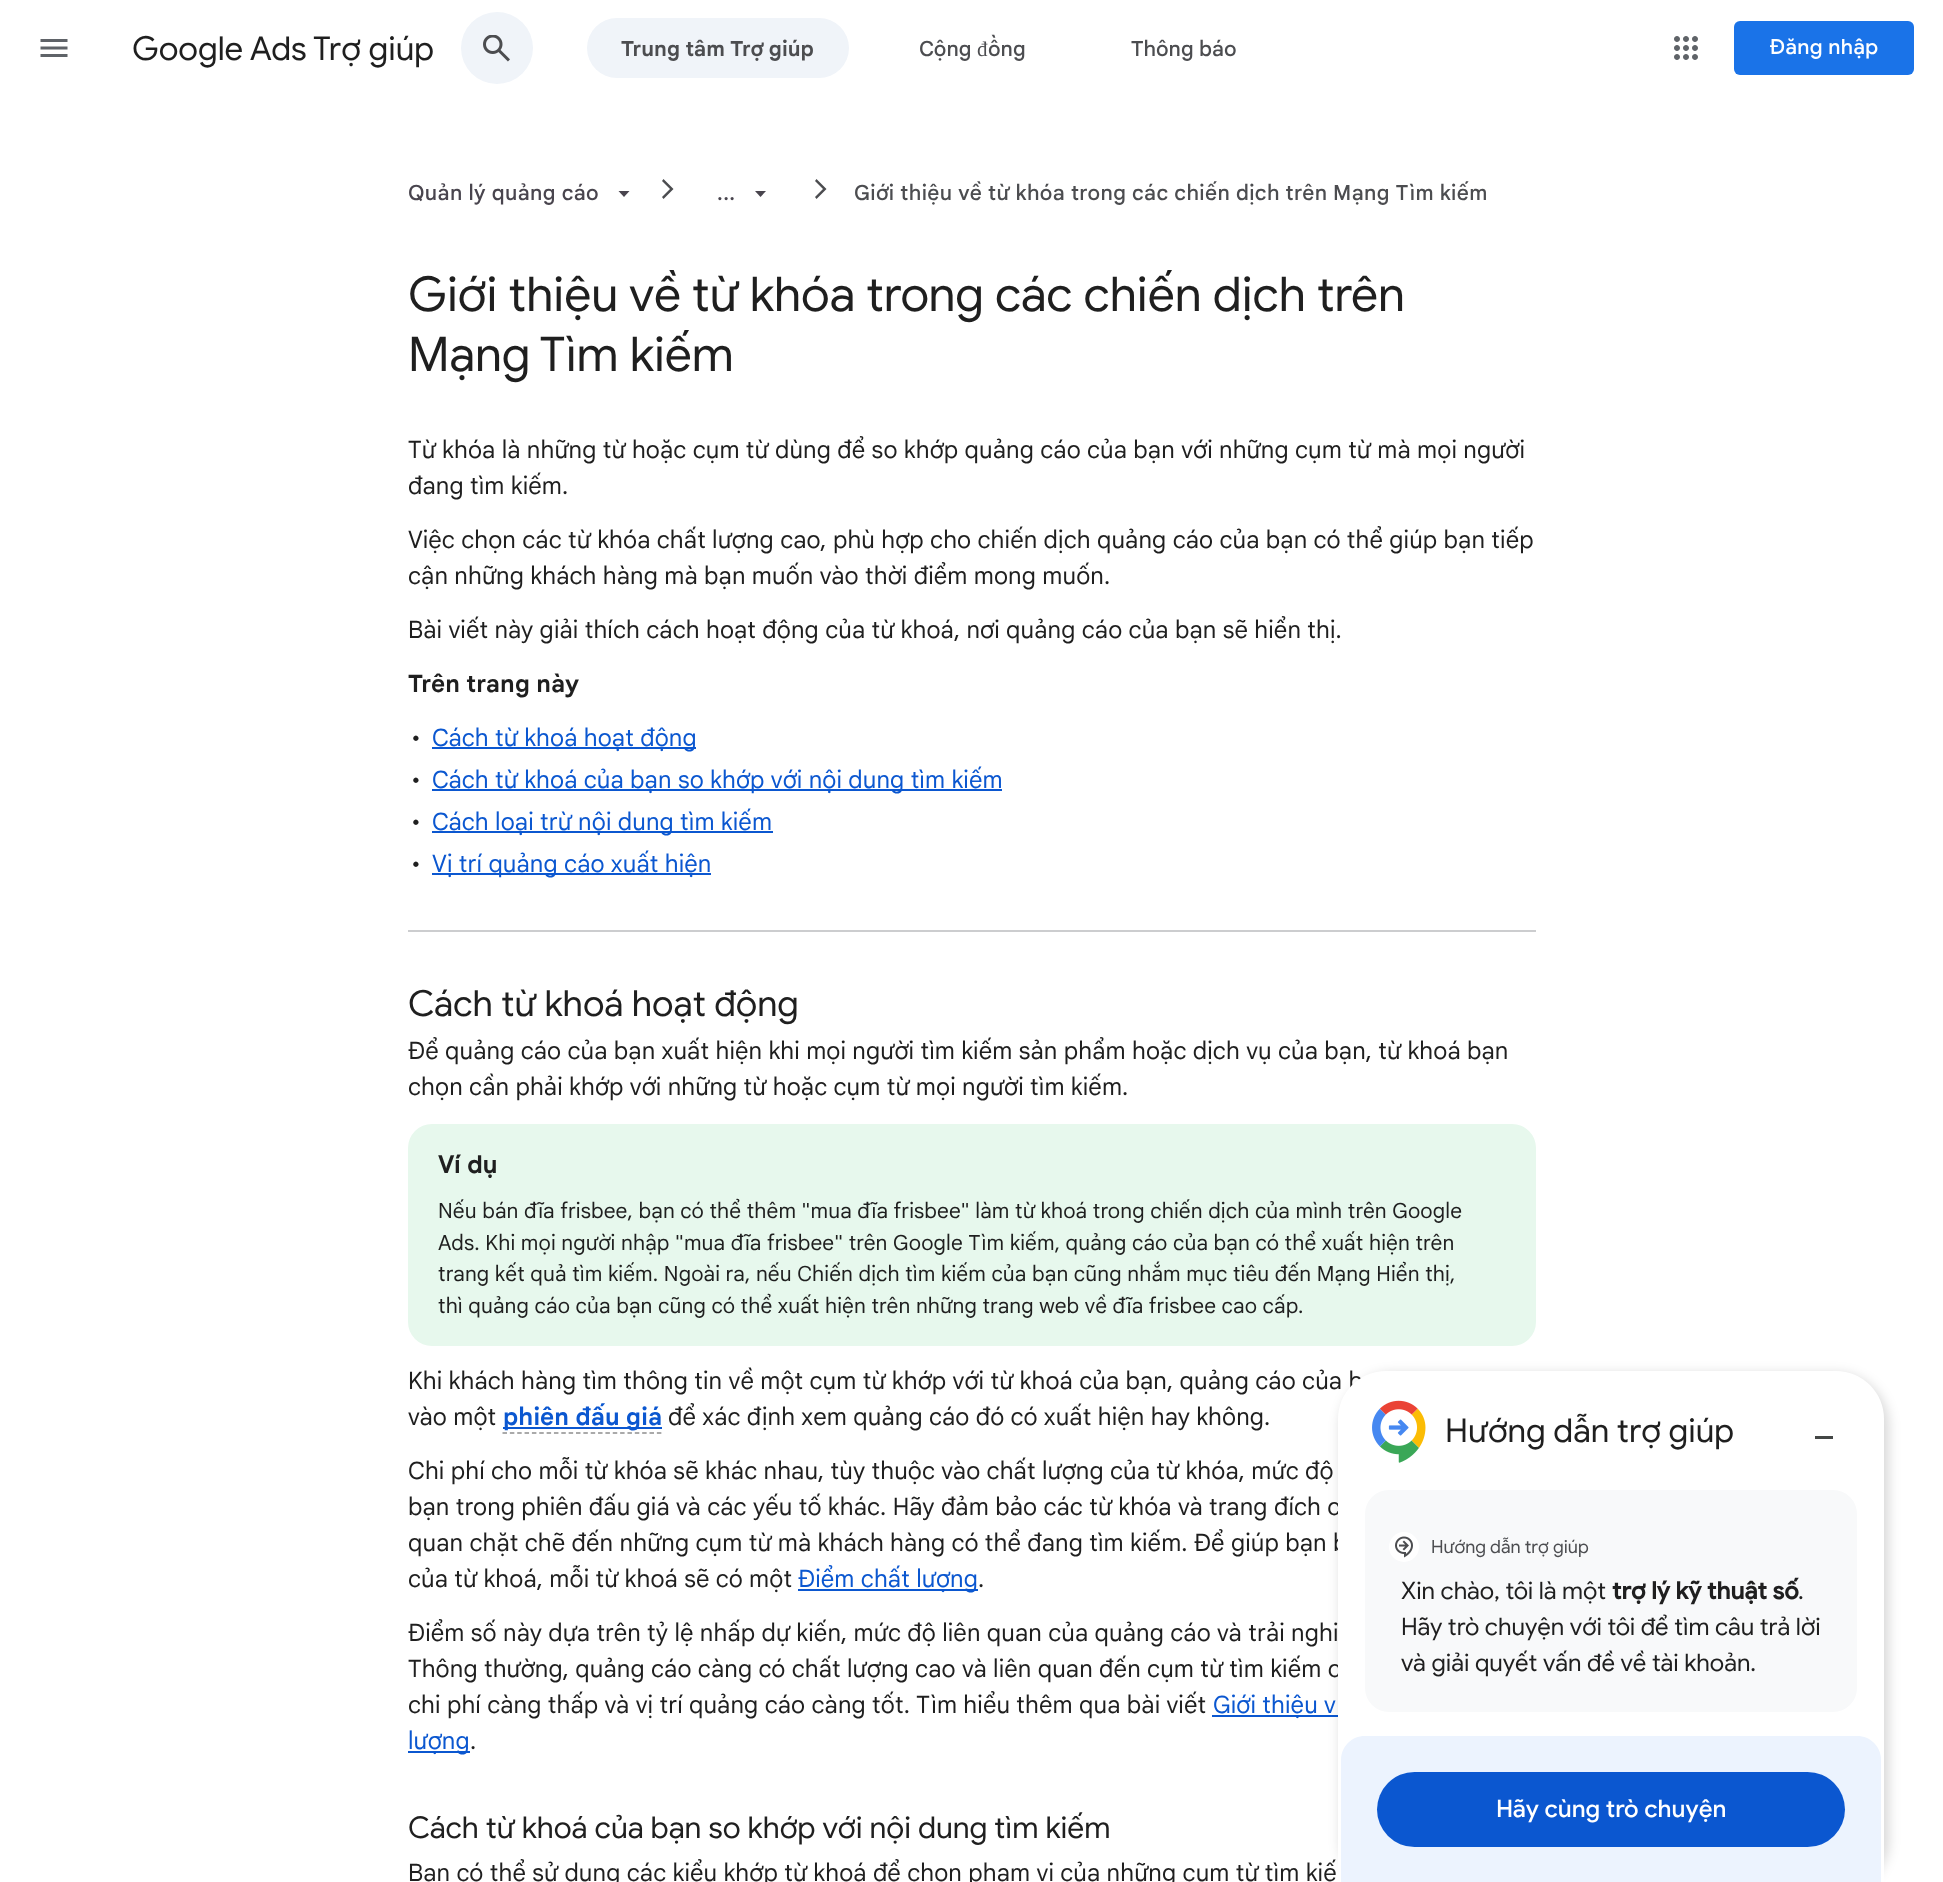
<?xml version="1.0" encoding="UTF-8"?>
<svg xmlns="http://www.w3.org/2000/svg" xmlns:xlink="http://www.w3.org/1999/xlink" width="1943" height="1882">
  <rect width="100%" height="100%" fill="#ffffff" />
  <image x="40" y="39" width="28" height="18" xlink:href="image1.png" />
  <circle cx="497" cy="48" r="36" fill="#f0f4f9" />
  <image x="483" y="35" width="27" height="27" xlink:href="image2.png" />
  <rect x="587" y="18" width="262" height="60" rx="30" fill="#f0f4f9" />
  <image x="1674" y="36" width="24" height="24" xlink:href="image3.png" />
  <rect x="1734" y="21" width="180" height="54" rx="6" fill="#1a73e8" />
  <path d="M 618.5 191 l 5.5 6 l 5.5 -6 z" fill="#49454e" />
  <path d="M 663.5 199 l -1.5 -2 l 8 -8 l -8 -8 l 1.5 -2 l 10 10 z" fill="#4c4d50" />
  <path d="M 755 191 l 5.5 6 l 5.5 -6 z" fill="#49454e" />
  <path d="M 816.5 199 l -1.5 -2 l 8 -8 l -8 -8 l 1.5 -2 l 10 10 z" fill="#4c4d50" />
  <rect x="432" y="747" width="264" height="2" fill="#0b57d0" />
  <rect x="432" y="789" width="570" height="2" fill="#0b57d0" />
  <rect x="432" y="831" width="341" height="2" fill="#0b57d0" />
  <rect x="432" y="873" width="279" height="2" fill="#0b57d0" />
  <rect x="408" y="930" width="1128" height="2" fill="#cccdcf" />
  <rect x="408" y="1124" width="1128" height="222" rx="24" fill="#e7f8ed" />
  <path d="M 502.5 1433 h 159" fill="none" stroke="#8f8f8f" stroke-width="1.5" stroke-dasharray="4.5 2.85" />
  <rect x="503" y="1427" width="159" height="2" fill="#0b57d0" />
  <rect x="798" y="1589" width="180" height="2" fill="#0b57d0" />
  <rect x="1212" y="1715" width="126" height="2" fill="#0b57d0" />
  <rect x="408" y="1751" width="62" height="2" fill="#0b57d0" />
  <rect x="1340" y="1373" width="549" height="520" rx="53" fill="#000000" fill-opacity="0.15" filter="blur(6px)" />
  <text x="132" y="60" style="font-family: Google Sans; font-size: 33px; fill: #1f1f1f">Google Ads Trợ giúp</text>
  <text x="621" y="56" style="font-family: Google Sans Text; font-size: 21px; font-weight: bold; fill: #4c4d50">Trung tâm Trợ giúp</text>
  <text x="919" y="56" style="font-family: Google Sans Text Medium; font-size: 21px; font-weight: 500; fill: #4c4d50">Cộng</text>
  <text x="977" y="56" style="font-family: Liberation Serif; font-size: 21px; fill: #4c4d50">đ</text>
  <text x="988" y="56" style="font-family: Google Sans Text Medium; font-size: 21px; font-weight: 500; fill: #4c4d50">ồng</text>
  <text x="1131" y="56" style="font-family: Google Sans Text Medium; font-size: 21px; font-weight: 500; fill: #4c4d50">Thông báo</text>
  <text x="1770" y="54" style="font-family: Google Sans; font-size: 21px; font-weight: 500; letter-spacing: 0.38px; fill: #ffffff">Đăng nhập</text>
  <text x="408" y="200" style="font-family: Google Sans Text Medium; font-size: 21px; font-weight: 500; letter-spacing: 0.38px; fill: #49454e">Quản lý quảng cáo</text>
  <text x="717" y="200" style="font-family: Google Sans Text Medium; font-size: 21px; font-weight: 500; letter-spacing: 0.38px; fill: #49454e">...</text>
  <text x="854" y="200" style="font-family: Google Sans Text Medium; font-size: 21px; font-weight: 500; letter-spacing: 0.38px; fill: #4c4d50">Giới thiệu về từ khóa trong các chiến dịch trên Mạng Tìm kiếm</text>
  <text x="408" y="311" style="font-family: Google Sans; font-size: 48px; fill: #1f1f1f">Giới thiệu về từ khóa trong các chiến dịch trên</text>
  <text x="408" y="371" style="font-family: Google Sans; font-size: 48px; fill: #1f1f1f">Mạng Tìm kiếm</text>
  <text x="408" y="458" style="font-family: Google Sans Text; font-size: 24px; letter-spacing: 0.12px; fill: #1f1f1f">Từ khóa là những từ hoặc cụm từ dùng để so khớp quảng cáo của bạn với những cụm từ mà mọi người</text>
  <text x="408" y="494" style="font-family: Google Sans Text; font-size: 24px; letter-spacing: 0.12px; fill: #1f1f1f">đang tìm kiếm.</text>
  <text x="408" y="548" style="font-family: Google Sans Text; font-size: 24px; letter-spacing: 0.12px; fill: #1f1f1f">Việc chọn các từ khóa chất lượng cao, phù hợp cho chiến dịch quảng cáo của bạn có thể giúp bạn tiếp</text>
  <text x="408" y="584" style="font-family: Google Sans Text; font-size: 24px; letter-spacing: 0.12px; fill: #1f1f1f">cận những khách hàng mà bạn muốn vào thời điểm mong muốn.</text>
  <text x="408" y="638" style="font-family: Google Sans Text; font-size: 24px; letter-spacing: 0.12px; fill: #1f1f1f">Bài viết này giải thích cách hoạt động của từ khoá, nơi quảng cáo của bạn sẽ hiển thị.</text>
  <text x="408" y="692" style="font-family: Google Sans Text; font-size: 24px; font-weight: bold; letter-spacing: 0.12px; fill: #1f1f1f">Trên trang này</text>
  <text x="411" y="746" style="font-family: Google Sans Text; font-size: 24px; letter-spacing: 0.12px; fill: #1f1f1f">•</text>
  <text x="432" y="746" style="font-family: Google Sans Text; font-size: 24px; letter-spacing: 0.12px; fill: #0b57d0">Cách từ khoá hoạt động</text>
  <text x="411" y="788" style="font-family: Google Sans Text; font-size: 24px; letter-spacing: 0.12px; fill: #1f1f1f">•</text>
  <text x="432" y="788" style="font-family: Google Sans Text; font-size: 24px; letter-spacing: 0.12px; fill: #0b57d0">Cách từ khoá của bạn so khớp với nội dung tìm kiếm</text>
  <text x="411" y="830" style="font-family: Google Sans Text; font-size: 24px; letter-spacing: 0.12px; fill: #1f1f1f">•</text>
  <text x="432" y="830" style="font-family: Google Sans Text; font-size: 24px; letter-spacing: 0.12px; fill: #0b57d0">Cách loại trừ nội dung tìm kiếm</text>
  <text x="411" y="872" style="font-family: Google Sans Text; font-size: 24px; letter-spacing: 0.12px; fill: #1f1f1f">•</text>
  <text x="432" y="872" style="font-family: Google Sans Text; font-size: 24px; letter-spacing: 0.12px; fill: #0b57d0">Vị trí quảng cáo xuất hiện</text>
  <text x="408" y="1016" style="font-family: Google Sans; font-size: 36px; fill: #1f1f1f">Cách từ khoá hoạt động</text>
  <text x="408" y="1059" style="font-family: Google Sans Text; font-size: 24px; letter-spacing: 0.12px; fill: #1f1f1f">Để quảng cáo của bạn xuất hiện khi mọi người tìm kiếm sản phẩm hoặc dịch vụ của bạn, từ khoá bạn</text>
  <text x="408" y="1095" style="font-family: Google Sans Text; font-size: 24px; letter-spacing: 0.12px; fill: #1f1f1f">chọn cần phải khớp với những từ hoặc cụm từ mọi người tìm kiếm.</text>
  <text x="438" y="1173" style="font-family: Google Sans; font-size: 24px; font-weight: bold; letter-spacing: 0.75px; fill: #1f1f1f">Ví dụ</text>
  <text x="438" y="1218" style="font-family: Google Sans Text; font-size: 21px; letter-spacing: 0.12px; fill: #1f1f1f">Nếu bán đĩa frisbee, bạn có thể thêm "mua đĩa frisbee" làm từ khoá trong chiến dịch của mình trên Google</text>
  <text x="438" y="1250" style="font-family: Google Sans Text; font-size: 21px; letter-spacing: 0.12px; fill: #1f1f1f">Ads. Khi mọi người nhập "mua đĩa frisbee" trên Google Tìm kiếm, quảng cáo của bạn có thể xuất hiện trên</text>
  <text x="438" y="1281" style="font-family: Google Sans Text; font-size: 21px; letter-spacing: 0.12px; fill: #1f1f1f">trang kết quả tìm kiếm. Ngoài ra, nếu Chiến dịch tìm kiếm của bạn cũng nhắm mục tiêu đến Mạng Hiển thị,</text>
  <text x="438" y="1313" style="font-family: Google Sans Text; font-size: 21px; letter-spacing: 0.12px; fill: #1f1f1f">thì quảng cáo của bạn cũng có thể xuất hiện trên những trang web về đĩa frisbee cao cấp.</text>
  <text x="408" y="1389" style="font-family: Google Sans Text; font-size: 24px; letter-spacing: 0.12px; fill: #1f1f1f">Khi khách hàng tìm thông tin về một cụm từ khớp với từ khoá của bạn, quảng cáo của b</text>
  <text x="408" y="1425" style="font-family: Google Sans Text; font-size: 24px; letter-spacing: 0.12px; fill: #1f1f1f">vào một</text>
  <text x="503" y="1425" style="font-family: Google Sans Text; font-size: 24px; font-weight: bold; letter-spacing: 0.12px; fill: #0b57d0">phiên đấu giá</text>
  <text x="668" y="1425" style="font-family: Google Sans Text; font-size: 24px; letter-spacing: 0.12px; fill: #1f1f1f">để xác định xem quảng cáo đó có xuất hiện hay không.</text>
  <text x="408" y="1479" style="font-family: Google Sans Text; font-size: 24px; letter-spacing: 0.12px; fill: #1f1f1f">Chi phí cho mỗi từ khóa sẽ khác nhau, tùy thuộc vào chất lượng của từ khóa, mức độ</text>
  <text x="408" y="1515" style="font-family: Google Sans Text; font-size: 24px; letter-spacing: 0.12px; fill: #1f1f1f">bạn trong phiên đấu giá và các yếu tố khác. Hãy đảm bảo các từ khóa và trang đích c</text>
  <text x="408" y="1551" style="font-family: Google Sans Text; font-size: 24px; letter-spacing: 0.12px; fill: #1f1f1f">quan chặt chẽ đến những cụm từ mà khách hàng có thể đang tìm kiếm. Để giúp bạn b</text>
  <text x="408" y="1587" style="font-family: Google Sans Text; font-size: 24px; letter-spacing: 0.12px; fill: #1f1f1f">của từ khoá, mỗi từ khoá sẽ có một</text>
  <text x="798" y="1587" style="font-family: Google Sans Text; font-size: 24px; letter-spacing: 0.12px; fill: #0b57d0">Điểm chất lượng</text>
  <text x="978" y="1587" style="font-family: Google Sans Text; font-size: 24px; letter-spacing: 0.12px; fill: #1f1f1f">.</text>
  <text x="408" y="1641" style="font-family: Google Sans Text; font-size: 24px; letter-spacing: 0.12px; fill: #1f1f1f">Điểm số này dựa trên tỷ lệ nhấp dự kiến, mức độ liên quan của quảng cáo và trải nghi</text>
  <text x="408" y="1677" style="font-family: Google Sans Text; font-size: 24px; letter-spacing: 0.12px; fill: #1f1f1f">Thông thường, quảng cáo càng có chất lượng cao và liên quan đến cụm từ tìm kiếm c</text>
  <text x="408" y="1713" style="font-family: Google Sans Text; font-size: 24px; letter-spacing: 0.12px; fill: #1f1f1f">chi phí càng thấp và vị trí quảng cáo càng tốt. Tìm hiểu thêm qua bài viết</text>
  <text x="1213" y="1713" style="font-family: Google Sans Text; font-size: 24px; letter-spacing: 0.12px; fill: #0b57d0">Giới thiệu v</text>
  <text x="408" y="1749" style="font-family: Google Sans Text; font-size: 24px; letter-spacing: 0.12px; fill: #0b57d0">lượng</text>
  <text x="470" y="1749" style="font-family: Google Sans Text; font-size: 24px; letter-spacing: 0.12px; fill: #1f1f1f">.</text>
  <text x="408" y="1838" style="font-family: Google Sans; font-size: 30px; fill: #1f1f1f">Cách từ khoá của bạn so khớp với nội dung tìm kiếm</text>
  <text x="408" y="1881" style="font-family: Google Sans Text; font-size: 24px; letter-spacing: 0.12px; fill: #1f1f1f">Bạn có thể sử dụng các kiểu khớp từ khoá để chọn phạm vi của những cụm từ tìm kiế</text>
  <path d="M 1386 1371 h 450 c 26.5 0 48 21.5 48 48 v 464 h -546 v -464 c 0 -26.5 21.5 -48 48 -48 z" fill="#ffffff" />
  <image x="1372" y="1400" width="54" height="63" xlink:href="image4.png" />
  <text x="1445" y="1442" style="font-family: Google Sans; font-size: 33px; fill: #1f1f1f">Hướng dẫn trợ giúp</text>
  <rect x="1815" y="1436" width="18" height="3" fill="#444746" />
  <rect x="1365" y="1490" width="492" height="222" rx="24" fill="#f8f9fa" />
  <circle cx="1404" cy="1547" r="15" fill="#ffffff" />
  <image x="1395" y="1536" width="18" height="22" xlink:href="image5.png" />
  <text x="1431" y="1553" style="font-family: Google Sans; font-size: 18px; fill: #4c4d50">Hướng dẫn trợ giúp</text>
  <text x="1401" y="1599" style="font-family: Google Sans; font-size: 24px; fill: #1f1f1f">Xin chào, tôi là một</text>
  <text x="1612" y="1599" style="font-family: Google Sans; font-size: 24px; font-weight: bold; fill: #1f1f1f">trợ lý kỹ thuật số</text>
  <text x="1798" y="1599" style="font-family: Google Sans; font-size: 24px; fill: #1f1f1f">.</text>
  <text x="1401" y="1635" style="font-family: Google Sans; font-size: 24px; fill: #1f1f1f">Hãy trò chuyện với tôi để tìm câu trả lời</text>
  <text x="1401" y="1671" style="font-family: Google Sans; font-size: 24px; fill: #1f1f1f">và giải quyết vấn đề về tài khoản.</text>
  <path d="M 1365 1736 h 492 c 13.5 0 24 10.5 24 24 v 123 h -540 v -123 c 0 -13.5 10.5 -24 24 -24 z" fill="#ecf3fe" />
  <rect x="1377" y="1772" width="468" height="75" rx="37.5" fill="#0b57d0" />
  <text x="1496" y="1817" style="font-family: Google Sans; font-size: 24px; font-weight: 500; fill: #ffffff">Hãy cùng trò chuyện</text>
</svg>
